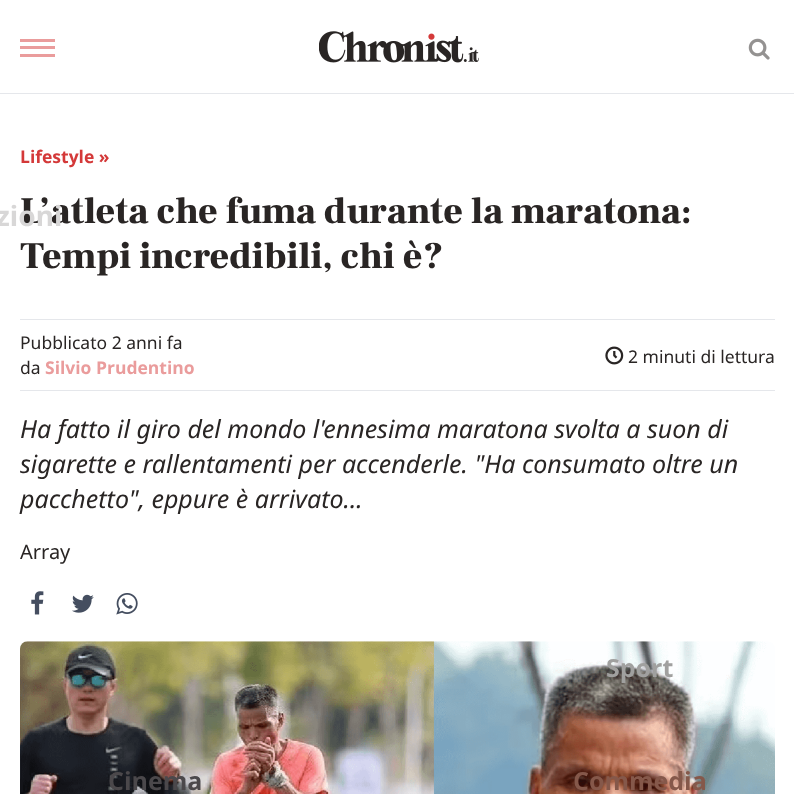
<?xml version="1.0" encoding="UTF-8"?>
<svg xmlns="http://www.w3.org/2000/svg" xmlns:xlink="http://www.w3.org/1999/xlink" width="794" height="794">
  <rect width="100%" height="100%" fill="#ffffff" />
  <rect y="93" width="794" height="1" fill="#e5e7eb" />
  <rect x="20" y="39" width="35" height="3" fill="#ea9c9c" />
  <rect x="20" y="46" width="35" height="3" fill="#ea9c9c" />
  <rect x="20" y="54" width="35" height="3" fill="#ea9c9c" />
  <image x="319" y="31" width="160" height="32" xlink:href="image1.png" />
  <image x="748" y="38" width="22" height="22" xlink:href="image2.png" />
  <rect x="20" y="319" width="755" height="1" fill="#e5e7eb" />
  <rect x="20" y="390" width="755" height="1" fill="#e5e7eb" />
  <image x="605" y="346" width="19" height="19" xlink:href="image3.png" />
  <image x="31" y="591" width="13" height="24" xlink:href="image4.png" />
  <image x="72" y="594" width="22" height="19" xlink:href="image5.png" />
  <image x="116" y="593" width="22" height="22" xlink:href="image6.png" />
  <image x="20" y="641" width="755" height="153" xlink:href="image7.png" />
  <text x="20" y="163" style="font-family: Noto Sans; font-size: 17.5px; font-weight: bold; fill: #d43939">Lifestyle »</text>
  <text x="20" y="223" style="font-family: Frank Ruhl Libre; font-size: 37.5px; font-weight: 900; fill: #292524">L’atleta che fuma durante la maratona:</text>
  <text x="20" y="268" style="font-family: Frank Ruhl Libre; font-size: 37.5px; font-weight: 900; fill: #292524">Tempi incredibili, chi è?</text>
  <text x="20" y="349" style="font-family: Noto Sans; font-size: 17.5px; fill: #292524">Pubblicato 2 anni fa</text>
  <text x="20" y="374" style="font-family: Noto Sans; font-size: 17.5px; fill: #292524">da</text>
  <text x="45" y="374" style="font-family: Noto Sans; font-size: 17.5px; font-weight: bold; fill: #ea9c9c">Silvio Prudentino</text>
  <text x="628" y="363" style="font-family: 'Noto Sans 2'; font-size: 17.5px; fill: #292524">2 minuti di lettura</text>
  <text x="20" y="438" style="font-family: Noto Sans; font-size: 25px; font-style: italic; fill: #292524">Ha fatto il giro del mondo l'ennesima maratona svolta a suon di</text>
  <text x="20" y="473" style="font-family: Noto Sans; font-size: 25px; font-style: italic; fill: #292524">sigarette e rallentamenti per accenderle. "Ha consumato oltre un</text>
  <text x="20" y="508" style="font-family: Noto Sans; font-size: 25px; font-style: italic; fill: #292524">pacchetto", eppure è arrivato...</text>
  <text x="20" y="559" style="font-family: 'Noto Sans 2'; font-size: 20px; fill: #292524">Array</text>
  <text x="-4" y="226" style="font-family: 'Noto Sans 2'; font-size: 28px; font-weight: bold; fill: #d8d7d7">zioni</text>
  <text x="606" y="677" style="font-family: Noto Sans; font-size: 25px; font-weight: bold; fill: #a0a09f">Sport</text>
  <text x="108" y="790" style="font-family: Noto Sans; font-size: 25px; font-weight: bold; fill: #4b484b">Cinema</text>
  <text x="573" y="790" style="font-family: Noto Sans; font-size: 25px; font-weight: bold; fill: #85584a">Commedia</text>
</svg>
